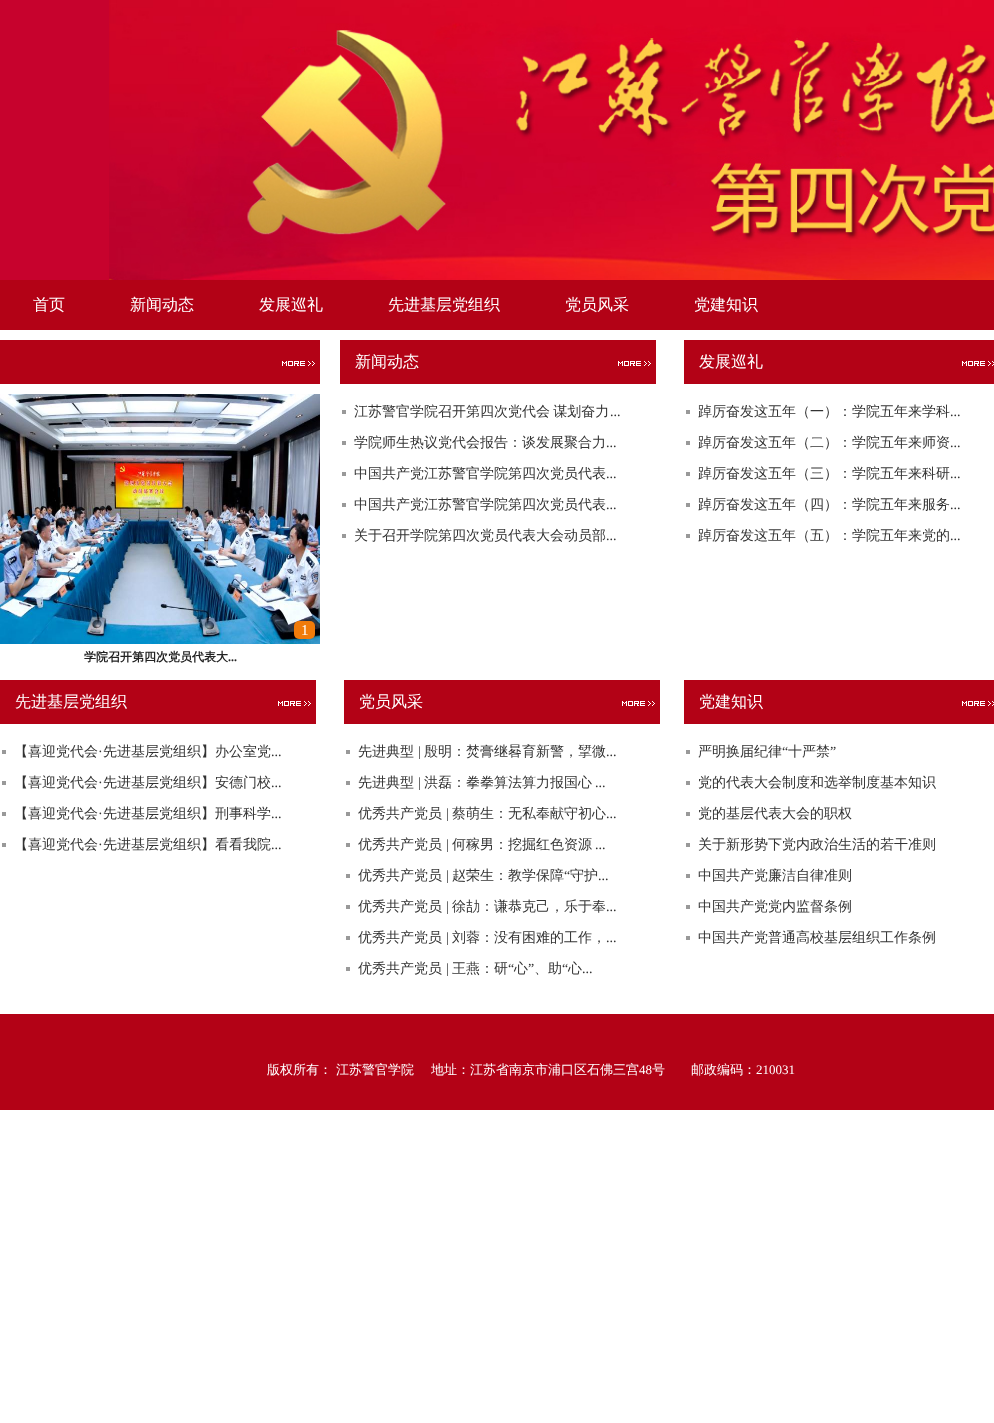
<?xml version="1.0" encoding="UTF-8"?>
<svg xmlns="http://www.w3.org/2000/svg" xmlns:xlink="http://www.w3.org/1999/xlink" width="994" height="1423">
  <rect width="100%" height="100%" fill="#ffffff" />
  <image x="0" y="0" width="994" height="280" xlink:href="image1.png" />
  <rect y="280" width="994" height="50" fill="#b30216" />
  <rect x="340" y="340" width="316" height="44" fill="#b30216" />
  <image x="618" y="361" width="33" height="5" xlink:href="image2.png" />
  <rect x="342" y="410" width="4" height="4" fill="#999999" />
  <rect x="342" y="441" width="4" height="4" fill="#999999" />
  <rect x="342" y="472" width="4" height="4" fill="#999999" />
  <rect x="342" y="503" width="4" height="4" fill="#999999" />
  <rect x="342" y="534" width="4" height="4" fill="#999999" />
  <rect x="684" y="340" width="310" height="44" fill="#b30216" />
  <image x="962" y="361" width="32" height="5" xlink:href="image3.png" />
  <rect x="686" y="410" width="4" height="4" fill="#999999" />
  <rect x="686" y="441" width="4" height="4" fill="#999999" />
  <rect x="686" y="472" width="4" height="4" fill="#999999" />
  <rect x="686" y="503" width="4" height="4" fill="#999999" />
  <rect x="686" y="534" width="4" height="4" fill="#999999" />
  <rect y="340" width="320" height="44" fill="#b30216" />
  <image x="282" y="361" width="33" height="5" xlink:href="image2.png" />
  <image x="0" y="394" width="320" height="250" xlink:href="image4.png" />
  <rect x="294" y="621" width="21" height="18" rx="5" fill="#f17b0a" />
  <rect y="680" width="316" height="44" fill="#b30216" />
  <image x="278" y="701" width="33" height="5" xlink:href="image2.png" />
  <rect x="2" y="750" width="4" height="4" fill="#999999" />
  <rect x="2" y="781" width="4" height="4" fill="#999999" />
  <rect x="2" y="812" width="4" height="4" fill="#999999" />
  <rect x="2" y="843" width="4" height="4" fill="#999999" />
  <rect x="344" y="680" width="316" height="44" fill="#b30216" />
  <image x="622" y="701" width="33" height="5" xlink:href="image2.png" />
  <rect x="346" y="750" width="4" height="4" fill="#999999" />
  <rect x="346" y="781" width="4" height="4" fill="#999999" />
  <rect x="346" y="812" width="4" height="4" fill="#999999" />
  <rect x="346" y="843" width="4" height="4" fill="#999999" />
  <rect x="346" y="874" width="4" height="4" fill="#999999" />
  <rect x="346" y="905" width="4" height="4" fill="#999999" />
  <rect x="346" y="936" width="4" height="4" fill="#999999" />
  <rect x="346" y="967" width="4" height="4" fill="#999999" />
  <rect x="684" y="680" width="310" height="44" fill="#b30216" />
  <image x="962" y="701" width="32" height="5" xlink:href="image3.png" />
  <rect x="686" y="750" width="4" height="4" fill="#999999" />
  <rect x="686" y="781" width="4" height="4" fill="#999999" />
  <rect x="686" y="812" width="4" height="4" fill="#999999" />
  <rect x="686" y="843" width="4" height="4" fill="#999999" />
  <rect x="686" y="874" width="4" height="4" fill="#999999" />
  <rect x="686" y="905" width="4" height="4" fill="#999999" />
  <rect x="686" y="936" width="4" height="4" fill="#999999" />
  <rect y="1014" width="994" height="96" fill="#b30216" />
  <text x="33" y="310" style="font-family: WenQuanYi Zen Hei; font-size: 16px; font-weight: 500; fill: #ffffff">首页</text>
  <text x="130" y="310" style="font-family: WenQuanYi Zen Hei; font-size: 16px; font-weight: 500; fill: #ffffff">新闻动态</text>
  <text x="259" y="310" style="font-family: WenQuanYi Zen Hei; font-size: 16px; font-weight: 500; fill: #ffffff">发展巡礼</text>
  <text x="388" y="310" style="font-family: WenQuanYi Zen Hei; font-size: 16px; font-weight: 500; fill: #ffffff">先进基层党组织</text>
  <text x="565" y="310" style="font-family: WenQuanYi Zen Hei; font-size: 16px; font-weight: 500; fill: #ffffff">党员风采</text>
  <text x="694" y="310" style="font-family: WenQuanYi Zen Hei; font-size: 16px; font-weight: 500; fill: #ffffff">党建知识</text>
  <text x="355" y="367" style="font-family: WenQuanYi Zen Hei; font-size: 16px; font-weight: 500; fill: #ffffff">新闻动态</text>
  <text x="354" y="416" word-spacing="-1" style="font-family: WenQuanYi Zen Hei; font-size: 14px; font-weight: 500; fill: #333333">江苏警官学院召开第四次党代会 谋划奋力</text>
  <text x="610" y="416" style="font-family: Liberation Serif; font-size: 14px; fill: #333333">...</text>
  <text x="354" y="447" style="font-family: WenQuanYi Zen Hei; font-size: 14px; font-weight: 500; fill: #333333">学院师生热议党代会报告：谈发展聚合力</text>
  <text x="606" y="447" style="font-family: Liberation Serif; font-size: 14px; fill: #333333">...</text>
  <text x="354" y="478" style="font-family: WenQuanYi Zen Hei; font-size: 14px; font-weight: 500; fill: #333333">中国共产党江苏警官学院第四次党员代表</text>
  <text x="606" y="478" style="font-family: Liberation Serif; font-size: 14px; fill: #333333">...</text>
  <text x="354" y="509" style="font-family: WenQuanYi Zen Hei; font-size: 14px; font-weight: 500; fill: #333333">中国共产党江苏警官学院第四次党员代表</text>
  <text x="606" y="509" style="font-family: Liberation Serif; font-size: 14px; fill: #333333">...</text>
  <text x="354" y="540" style="font-family: WenQuanYi Zen Hei; font-size: 14px; font-weight: 500; fill: #333333">关于召开学院第四次党员代表大会动员部</text>
  <text x="606" y="540" style="font-family: Liberation Serif; font-size: 14px; fill: #333333">...</text>
  <text x="699" y="367" style="font-family: WenQuanYi Zen Hei; font-size: 16px; font-weight: 500; fill: #ffffff">发展巡礼</text>
  <text x="698" y="416" style="font-family: WenQuanYi Zen Hei; font-size: 14px; font-weight: 500; fill: #333333">踔厉奋发这五年（一）：学院五年来学科</text>
  <text x="950" y="416" style="font-family: Liberation Serif; font-size: 14px; fill: #333333">...</text>
  <text x="698" y="447" style="font-family: WenQuanYi Zen Hei; font-size: 14px; font-weight: 500; fill: #333333">踔厉奋发这五年（二）：学院五年来师资</text>
  <text x="950" y="447" style="font-family: Liberation Serif; font-size: 14px; fill: #333333">...</text>
  <text x="698" y="478" style="font-family: WenQuanYi Zen Hei; font-size: 14px; font-weight: 500; fill: #333333">踔厉奋发这五年（三）：学院五年来科研</text>
  <text x="950" y="478" style="font-family: Liberation Serif; font-size: 14px; fill: #333333">...</text>
  <text x="698" y="509" style="font-family: WenQuanYi Zen Hei; font-size: 14px; font-weight: 500; fill: #333333">踔厉奋发这五年（四）：学院五年来服务</text>
  <text x="950" y="509" style="font-family: Liberation Serif; font-size: 14px; fill: #333333">...</text>
  <text x="698" y="540" style="font-family: WenQuanYi Zen Hei; font-size: 14px; font-weight: 500; fill: #333333">踔厉奋发这五年（五）：学院五年来党的</text>
  <text x="950" y="540" style="font-family: Liberation Serif; font-size: 14px; fill: #333333">...</text>
  <text x="301" y="635" style="font-family: Liberation Serif; font-size: 15px; fill: #ffffff">1</text>
  <text x="84" y="661" style="font-family: WenQuanYi Zen Hei; font-size: 12px; font-weight: bold; fill: #222222">学院召开第四次党员代表大</text>
  <text x="228" y="661" style="font-family: Liberation Serif; font-size: 12px; font-weight: bold; fill: #222222">...</text>
  <text x="15" y="707" style="font-family: WenQuanYi Zen Hei; font-size: 16px; font-weight: 500; fill: #ffffff">先进基层党组织</text>
  <text x="14" y="756" style="font-family: WenQuanYi Zen Hei; font-size: 14px; font-weight: 500; fill: #333333">【喜迎党代会</text>
  <text x="98" y="756" style="font-family: Liberation Serif; font-size: 14px; fill: #333333">·</text>
  <text x="103" y="756" style="font-family: WenQuanYi Zen Hei; font-size: 14px; font-weight: 500; fill: #333333">先进基层党组织】办公室党</text>
  <text x="271" y="756" style="font-family: Liberation Serif; font-size: 14px; fill: #333333">...</text>
  <text x="14" y="787" style="font-family: WenQuanYi Zen Hei; font-size: 14px; font-weight: 500; fill: #333333">【喜迎党代会</text>
  <text x="98" y="787" style="font-family: Liberation Serif; font-size: 14px; fill: #333333">·</text>
  <text x="103" y="787" style="font-family: WenQuanYi Zen Hei; font-size: 14px; font-weight: 500; fill: #333333">先进基层党组织】安德门校</text>
  <text x="271" y="787" style="font-family: Liberation Serif; font-size: 14px; fill: #333333">...</text>
  <text x="14" y="818" style="font-family: WenQuanYi Zen Hei; font-size: 14px; font-weight: 500; fill: #333333">【喜迎党代会</text>
  <text x="98" y="818" style="font-family: Liberation Serif; font-size: 14px; fill: #333333">·</text>
  <text x="103" y="818" style="font-family: WenQuanYi Zen Hei; font-size: 14px; font-weight: 500; fill: #333333">先进基层党组织】刑事科学</text>
  <text x="271" y="818" style="font-family: Liberation Serif; font-size: 14px; fill: #333333">...</text>
  <text x="14" y="849" style="font-family: WenQuanYi Zen Hei; font-size: 14px; font-weight: 500; fill: #333333">【喜迎党代会</text>
  <text x="98" y="849" style="font-family: Liberation Serif; font-size: 14px; fill: #333333">·</text>
  <text x="103" y="849" style="font-family: WenQuanYi Zen Hei; font-size: 14px; font-weight: 500; fill: #333333">先进基层党组织】看看我院</text>
  <text x="271" y="849" style="font-family: Liberation Serif; font-size: 14px; fill: #333333">...</text>
  <text x="359" y="707" style="font-family: WenQuanYi Zen Hei; font-size: 16px; font-weight: 500; fill: #ffffff">党员风采</text>
  <text x="358" y="756" style="font-family: WenQuanYi Zen Hei; font-size: 14px; font-weight: 500; fill: #333333">先进典型</text>
  <text x="418" y="756" style="font-family: Liberation Serif; font-size: 14px; fill: #333333">|</text>
  <text x="424" y="756" style="font-family: WenQuanYi Zen Hei; font-size: 14px; font-weight: 500; fill: #333333">殷明：焚膏继晷育新警，揅微</text>
  <text x="606" y="756" style="font-family: Liberation Serif; font-size: 14px; fill: #333333">...</text>
  <text x="358" y="787" style="font-family: WenQuanYi Zen Hei; font-size: 14px; font-weight: 500; fill: #333333">先进典型</text>
  <text x="418" y="787" style="font-family: Liberation Serif; font-size: 14px; fill: #333333">|</text>
  <text x="424" y="787" style="font-family: WenQuanYi Zen Hei; font-size: 14px; font-weight: 500; fill: #333333">洪磊：拳拳算法算力报国心</text>
  <text x="595" y="787" style="font-family: Liberation Serif; font-size: 14px; fill: #333333">...</text>
  <text x="358" y="818" style="font-family: WenQuanYi Zen Hei; font-size: 14px; font-weight: 500; fill: #333333">优秀共产党员</text>
  <text x="446" y="818" style="font-family: Liberation Serif; font-size: 14px; fill: #333333">|</text>
  <text x="452" y="818" style="font-family: WenQuanYi Zen Hei; font-size: 14px; font-weight: 500; fill: #333333">蔡萌生：无私奉献守初心</text>
  <text x="606" y="818" style="font-family: Liberation Serif; font-size: 14px; fill: #333333">...</text>
  <text x="358" y="849" style="font-family: WenQuanYi Zen Hei; font-size: 14px; font-weight: 500; fill: #333333">优秀共产党员</text>
  <text x="446" y="849" style="font-family: Liberation Serif; font-size: 14px; fill: #333333">|</text>
  <text x="452" y="849" style="font-family: WenQuanYi Zen Hei; font-size: 14px; font-weight: 500; fill: #333333">何稼男：挖掘红色资源</text>
  <text x="595" y="849" style="font-family: Liberation Serif; font-size: 14px; fill: #333333">...</text>
  <text x="358" y="880" style="font-family: WenQuanYi Zen Hei; font-size: 14px; font-weight: 500; fill: #333333">优秀共产党员</text>
  <text x="446" y="880" style="font-family: Liberation Serif; font-size: 14px; fill: #333333">|</text>
  <text x="452" y="880" style="font-family: WenQuanYi Zen Hei; font-size: 14px; font-weight: 500; fill: #333333">赵荣生：教学保障</text>
  <text x="564" y="880" style="font-family: Liberation Serif; font-size: 14px; fill: #333333">“</text>
  <text x="570" y="880" style="font-family: WenQuanYi Zen Hei; font-size: 14px; font-weight: 500; fill: #333333">守护</text>
  <text x="598" y="880" style="font-family: Liberation Serif; font-size: 14px; fill: #333333">...</text>
  <text x="358" y="911" style="font-family: WenQuanYi Zen Hei; font-size: 14px; font-weight: 500; fill: #333333">优秀共产党员</text>
  <text x="446" y="911" style="font-family: Liberation Serif; font-size: 14px; fill: #333333">|</text>
  <text x="452" y="911" style="font-family: WenQuanYi Zen Hei; font-size: 14px; font-weight: 500; fill: #333333">徐劼：谦恭克己，乐于奉</text>
  <text x="606" y="911" style="font-family: Liberation Serif; font-size: 14px; fill: #333333">...</text>
  <text x="358" y="942" style="font-family: WenQuanYi Zen Hei; font-size: 14px; font-weight: 500; fill: #333333">优秀共产党员</text>
  <text x="446" y="942" style="font-family: Liberation Serif; font-size: 14px; fill: #333333">|</text>
  <text x="452" y="942" style="font-family: WenQuanYi Zen Hei; font-size: 14px; font-weight: 500; fill: #333333">刘蓉：没有困难的工作，</text>
  <text x="606" y="942" style="font-family: Liberation Serif; font-size: 14px; fill: #333333">...</text>
  <text x="358" y="973" style="font-family: WenQuanYi Zen Hei; font-size: 14px; font-weight: 500; fill: #333333">优秀共产党员</text>
  <text x="446" y="973" style="font-family: Liberation Serif; font-size: 14px; fill: #333333">|</text>
  <text x="452" y="973" style="font-family: WenQuanYi Zen Hei; font-size: 14px; font-weight: 500; fill: #333333">王燕：研</text>
  <text x="508" y="973" style="font-family: Liberation Serif; font-size: 14px; fill: #333333">“</text>
  <text x="514" y="973" style="font-family: WenQuanYi Zen Hei; font-size: 14px; font-weight: 500; fill: #333333">心</text>
  <text x="528" y="973" style="font-family: Liberation Serif; font-size: 14px; fill: #333333">”</text>
  <text x="534" y="973" style="font-family: WenQuanYi Zen Hei; font-size: 14px; font-weight: 500; fill: #333333">、助</text>
  <text x="562" y="973" style="font-family: Liberation Serif; font-size: 14px; fill: #333333">“</text>
  <text x="568" y="973" style="font-family: WenQuanYi Zen Hei; font-size: 14px; font-weight: 500; fill: #333333">心</text>
  <text x="582" y="973" style="font-family: Liberation Serif; font-size: 14px; fill: #333333">...</text>
  <text x="699" y="707" style="font-family: WenQuanYi Zen Hei; font-size: 16px; font-weight: 500; fill: #ffffff">党建知识</text>
  <text x="698" y="756" style="font-family: WenQuanYi Zen Hei; font-size: 14px; font-weight: 500; fill: #333333">严明换届纪律</text>
  <text x="782" y="756" style="font-family: Liberation Serif; font-size: 14px; fill: #333333">“</text>
  <text x="788" y="756" style="font-family: WenQuanYi Zen Hei; font-size: 14px; font-weight: 500; fill: #333333">十严禁</text>
  <text x="830" y="756" style="font-family: Liberation Serif; font-size: 14px; fill: #333333">”</text>
  <text x="698" y="787" style="font-family: WenQuanYi Zen Hei; font-size: 14px; font-weight: 500; fill: #333333">党的代表大会制度和选举制度基本知识</text>
  <text x="698" y="818" style="font-family: WenQuanYi Zen Hei; font-size: 14px; font-weight: 500; fill: #333333">党的基层代表大会的职权</text>
  <text x="698" y="849" style="font-family: WenQuanYi Zen Hei; font-size: 14px; font-weight: 500; fill: #333333">关于新形势下党内政治生活的若干准则</text>
  <text x="698" y="880" style="font-family: WenQuanYi Zen Hei; font-size: 14px; font-weight: 500; fill: #333333">中国共产党廉洁自律准则</text>
  <text x="698" y="911" style="font-family: WenQuanYi Zen Hei; font-size: 14px; font-weight: 500; fill: #333333">中国共产党党内监督条例</text>
  <text x="698" y="942" style="font-family: WenQuanYi Zen Hei; font-size: 14px; font-weight: 500; fill: #333333">中国共产党普通高校基层组织工作条例</text>
  <text x="267" y="1074" style="font-family: WenQuanYi Zen Hei; font-size: 13px; font-weight: 500; fill: #ffffff">版权所有： 江苏警官学院</text>
  <text x="431" y="1074" style="font-family: WenQuanYi Zen Hei; font-size: 13px; font-weight: 500; fill: #ffffff">地址：江苏省南京市浦口区石佛三宫</text>
  <text x="639" y="1074" style="font-family: Liberation Serif; font-size: 13px; fill: #ffffff">48</text>
  <text x="652" y="1074" style="font-family: WenQuanYi Zen Hei; font-size: 13px; font-weight: 500; fill: #ffffff">号</text>
  <text x="691" y="1074" style="font-family: WenQuanYi Zen Hei; font-size: 13px; font-weight: 500; fill: #ffffff">邮政编码：</text>
  <text x="756" y="1074" style="font-family: Liberation Serif; font-size: 13px; fill: #ffffff">210031</text>
</svg>
